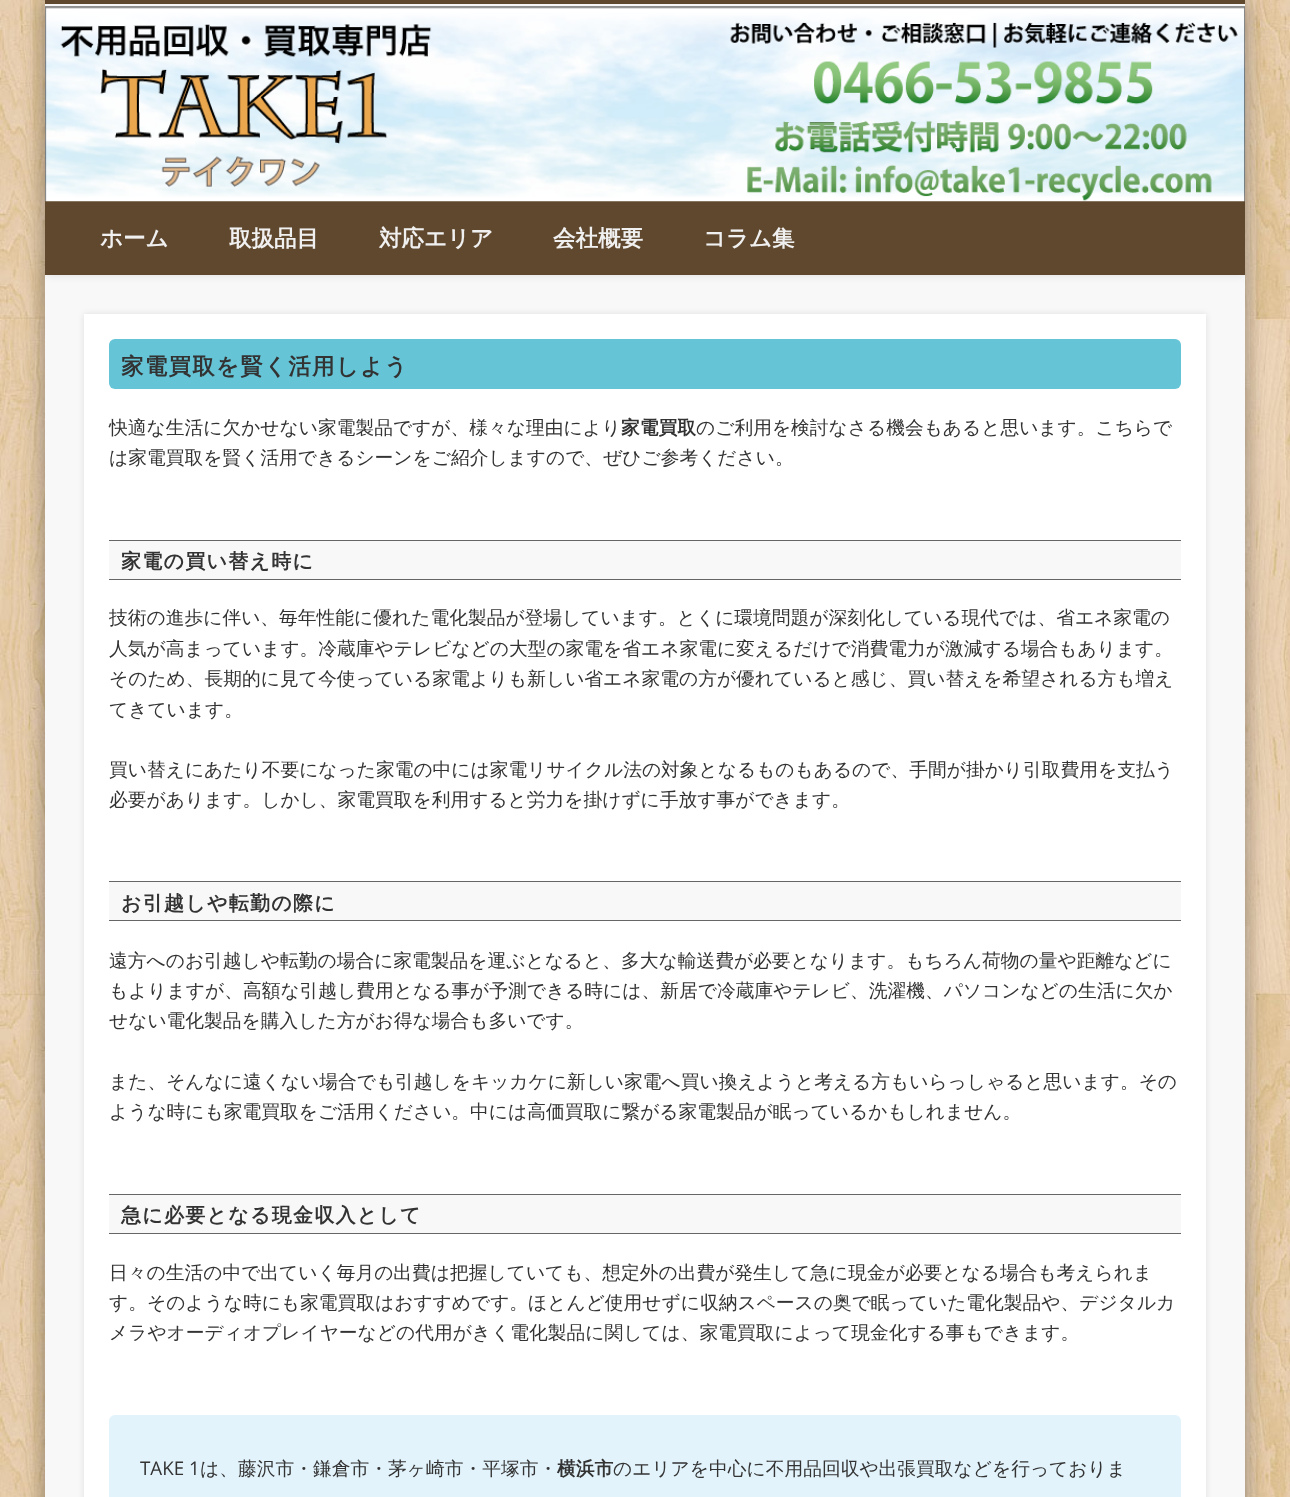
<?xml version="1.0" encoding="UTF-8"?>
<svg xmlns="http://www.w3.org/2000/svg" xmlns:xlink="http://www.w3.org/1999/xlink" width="1290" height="1497">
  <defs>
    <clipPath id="clip1"><rect x="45" y="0" width="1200" height="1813" /></clipPath>
  </defs>
  <rect width="100%" height="100%" fill="#ffffff" />
  <image x="0" y="0" width="1290" height="1497" xlink:href="image1.png" />
  <rect x="45" width="1200" height="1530" fill="#000000" fill-opacity="0.4" filter="blur(11px)" />
  <rect x="45" y="4" width="1200" height="1493" fill="#f8f8f8" />
  <rect x="45" width="1200" height="4" fill="#60482e" />
  <g clip-path="url(#clip1)">
    <rect x="45" y="201" width="1200" height="74" fill="#000000" fill-opacity="0.1" filter="blur(4.5px)" />
  </g>
  <rect x="45" y="201" width="1200" height="74" fill="#60482e" />
  <image x="45" y="6" width="1200" height="196" xlink:href="image2.png" />
  <rect x="84" y="314" width="1122" height="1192" fill="#000000" fill-opacity="0.1" filter="blur(3px)" />
  <rect x="84" y="314" width="1122" height="1183" fill="#ffffff" />
  <rect x="109" y="339" width="1072" height="50" rx="6" fill="#65c5d7" />
  <rect x="109" y="541" width="1072" height="38" fill="#f8f8f8" />
  <rect x="109" y="540" width="1072" height="1" fill="#666666" />
  <rect x="109" y="579" width="1072" height="1" fill="#666666" />
  <rect x="109" y="882" width="1072" height="38" fill="#f8f8f8" />
  <rect x="109" y="881" width="1072" height="1" fill="#666666" />
  <rect x="109" y="920" width="1072" height="1" fill="#666666" />
  <rect x="109" y="1195" width="1072" height="38" fill="#f8f8f8" />
  <rect x="109" y="1194" width="1072" height="1" fill="#666666" />
  <rect x="109" y="1233" width="1072" height="1" fill="#666666" />
  <rect x="109" y="1415" width="1072" height="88" rx="6" fill="#e2f3fb" />
  <text x="100" y="246" style="font-family: WenQuanYi Zen Hei; font-size: 22.5px; font-weight: bold; fill: #f0f0f0">ホーム</text>
  <text x="229" y="246" style="font-family: WenQuanYi Zen Hei; font-size: 22.5px; font-weight: bold; fill: #f0f0f0">取扱品目</text>
  <text x="379" y="246" style="font-family: WenQuanYi Zen Hei; font-size: 22.5px; font-weight: bold; fill: #f0f0f0">対応エリア</text>
  <text x="553" y="246" style="font-family: WenQuanYi Zen Hei; font-size: 22.5px; font-weight: bold; fill: #f0f0f0">会社概要</text>
  <text x="703" y="246" style="font-family: WenQuanYi Zen Hei; font-size: 22.5px; font-weight: bold; fill: #f0f0f0">コラム集</text>
  <text x="121" y="374" style="font-family: WenQuanYi Zen Hei; font-size: 22.5px; font-weight: bold; letter-spacing: 1.25px; fill: #333333">家電買取を賢く活用しよう</text>
  <text x="109" y="434" style="font-family: WenQuanYi Zen Hei; font-size: 18.75px; font-weight: 500; fill: #333333">快適な生活に欠かせない家電製品ですが、様々な理由により</text>
  <text x="621" y="434" style="font-family: WenQuanYi Zen Hei; font-size: 18.75px; font-weight: bold; fill: #333333">家電買取</text>
  <text x="696" y="434" style="font-family: WenQuanYi Zen Hei; font-size: 18.75px; font-weight: 500; fill: #333333">のご利用を検討なさる機会もあると思います。こちらで</text>
  <text x="109" y="464" style="font-family: WenQuanYi Zen Hei; font-size: 18.75px; font-weight: 500; fill: #333333">は家電買取を賢く活用できるシーンをご紹介しますので、ぜひご参考ください。</text>
  <text x="121" y="568" style="font-family: WenQuanYi Zen Hei; font-size: 20px; font-weight: bold; letter-spacing: 1.25px; fill: #333333">家電の買い替え時に</text>
  <text x="109" y="624" style="font-family: WenQuanYi Zen Hei; font-size: 18.75px; font-weight: 500; fill: #333333">技術の進歩に伴い、毎年性能に優れた電化製品が登場しています。とくに環境問題が深刻化している現代では、省エネ家電の</text>
  <text x="109" y="655" style="font-family: WenQuanYi Zen Hei; font-size: 18.75px; font-weight: 500; fill: #333333">人気が高まっています。冷蔵庫やテレビなどの大型の家電を省エネ家電に変えるだけで消費電力が激減する場合もあります。</text>
  <text x="109" y="685" style="font-family: WenQuanYi Zen Hei; font-size: 18.75px; font-weight: 500; fill: #333333">そのため、長期的に見て今使っている家電よりも新しい省エネ家電の方が優れていると感じ、買い替えを希望される方も増え</text>
  <text x="109" y="716" style="font-family: WenQuanYi Zen Hei; font-size: 18.75px; font-weight: 500; fill: #333333">てきています。</text>
  <text x="109" y="776" style="font-family: WenQuanYi Zen Hei; font-size: 18.75px; font-weight: 500; fill: #333333">買い替えにあたり不要になった家電の中には家電リサイクル法の対象となるものもあるので、手間が掛かり引取費用を支払う</text>
  <text x="109" y="806" style="font-family: WenQuanYi Zen Hei; font-size: 18.75px; font-weight: 500; fill: #333333">必要があります。しかし、家電買取を利用すると労力を掛けずに手放す事ができます。</text>
  <text x="121" y="910" style="font-family: WenQuanYi Zen Hei; font-size: 20px; font-weight: bold; letter-spacing: 1.25px; fill: #333333">お引越しや転勤の際に</text>
  <text x="109" y="967" style="font-family: WenQuanYi Zen Hei; font-size: 18.75px; font-weight: 500; fill: #333333">遠方へのお引越しや転勤の場合に家電製品を運ぶとなると、多大な輸送費が必要となります。もちろん荷物の量や距離などに</text>
  <text x="109" y="997" style="font-family: WenQuanYi Zen Hei; font-size: 18.75px; font-weight: 500; fill: #333333">もよりますが、高額な引越し費用となる事が予測できる時には、新居で冷蔵庫やテレビ、洗濯機、パソコンなどの生活に欠か</text>
  <text x="109" y="1027" style="font-family: WenQuanYi Zen Hei; font-size: 18.75px; font-weight: 500; fill: #333333">せない電化製品を購入した方がお得な場合も多いです。</text>
  <text x="109" y="1088" style="font-family: WenQuanYi Zen Hei; font-size: 18.75px; font-weight: 500; fill: #333333">また、そんなに遠くない場合でも引越しをキッカケに新しい家電へ買い換えようと考える方もいらっしゃると思います。その</text>
  <text x="109" y="1118" style="font-family: WenQuanYi Zen Hei; font-size: 18.75px; font-weight: 500; fill: #333333">ような時にも家電買取をご活用ください。中には高価買取に繋がる家電製品が眠っているかもしれません。</text>
  <text x="121" y="1222" style="font-family: WenQuanYi Zen Hei; font-size: 20px; font-weight: bold; letter-spacing: 1.25px; fill: #333333">急に必要となる現金収入として</text>
  <text x="109" y="1279" style="font-family: WenQuanYi Zen Hei; font-size: 18.75px; font-weight: 500; fill: #333333">日々の生活の中で出ていく毎月の出費は把握していても、想定外の出費が発生して急に現金が必要となる場合も考えられま</text>
  <text x="109" y="1309" style="font-family: WenQuanYi Zen Hei; font-size: 18.75px; font-weight: 500; fill: #333333">す。そのような時にも家電買取はおすすめです。ほとんど使用せずに収納スペースの奥で眠っていた電化製品や、デジタルカ</text>
  <text x="109" y="1339" style="font-family: WenQuanYi Zen Hei; font-size: 18.75px; font-weight: 500; fill: #333333">メラやオーディオプレイヤーなどの代用がきく電化製品に関しては、家電買取によって現金化する事もできます。</text>
  <text x="140" y="1475" style="font-family: Open Sans; font-size: 18.75px; fill: #333333">TAKE 1</text>
  <text x="200" y="1475" style="font-family: WenQuanYi Zen Hei; font-size: 18.75px; font-weight: 500; fill: #333333">は、藤沢市・鎌倉市・茅ヶ崎市・平塚市・</text>
  <text x="557" y="1475" style="font-family: WenQuanYi Zen Hei; font-size: 18.75px; font-weight: bold; fill: #333333">横浜市</text>
  <text x="613" y="1475" style="font-family: WenQuanYi Zen Hei; font-size: 18.75px; font-weight: 500; fill: #333333">のエリアを中心に不用品回収や出張買取などを行っておりま</text>
</svg>
